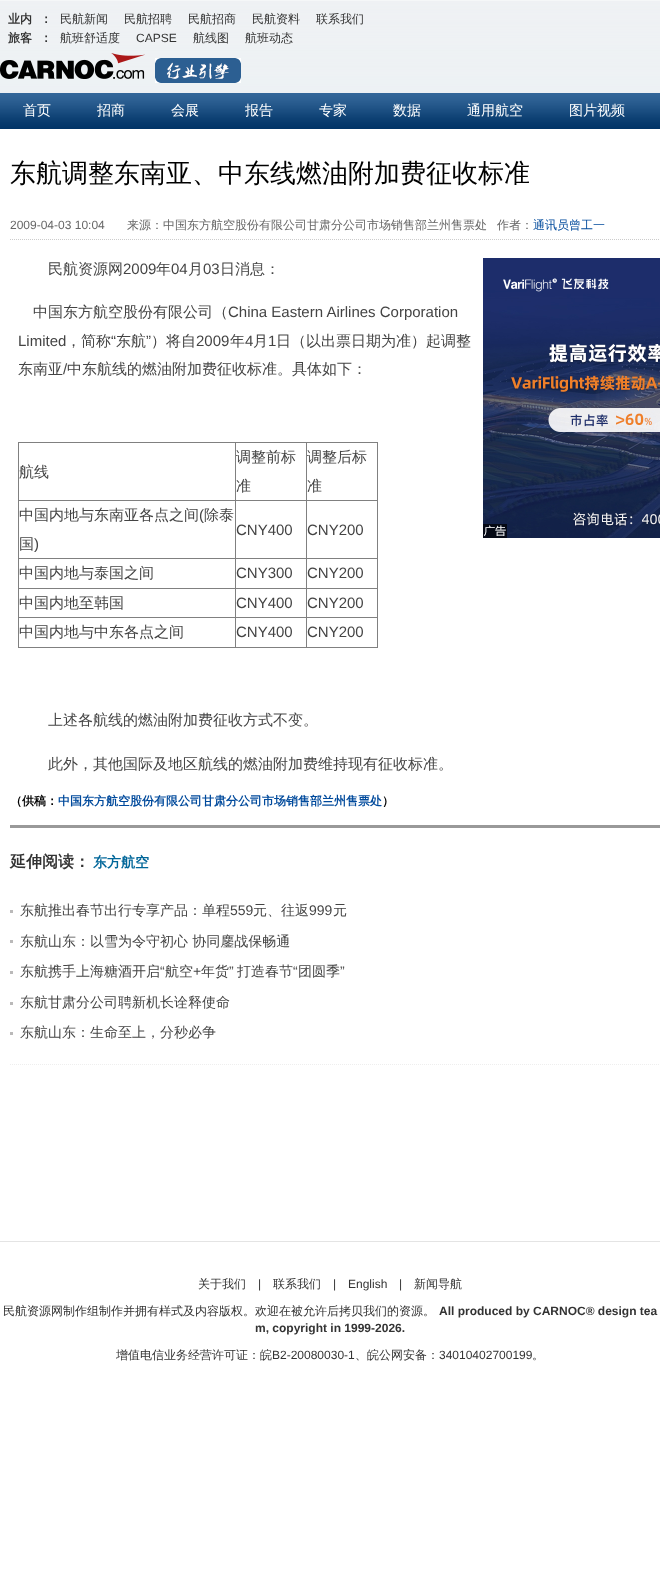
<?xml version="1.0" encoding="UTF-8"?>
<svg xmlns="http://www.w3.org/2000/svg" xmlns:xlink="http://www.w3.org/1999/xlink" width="660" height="1572">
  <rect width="100%" height="100%" fill="#ffffff" />
  <image x="0" y="0" width="660" height="93" xlink:href="image1.png" />
  <image x="0" y="53" width="145" height="26" xlink:href="image2.png" />
  <image x="155" y="58" width="86" height="25" xlink:href="image3.png" />
  <image x="0" y="93" width="660" height="36" xlink:href="image4.png" />
  <path d="M 10 239.5 h 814" fill="none" stroke="#cccccc" stroke-dasharray="1 1" />
  <image x="483" y="258" width="177" height="280" xlink:href="image5.png" />
  <image x="483" y="524" width="24" height="14" xlink:href="image6.png" />
  <rect x="18" y="442" width="360" height="1" fill="#808080" />
  <rect x="377" y="442" width="1" height="206" fill="#808080" />
  <rect x="18" y="647" width="360" height="1" fill="#808080" />
  <rect x="18" y="442" width="1" height="206" fill="#808080" />
  <rect x="306" y="500" width="72" height="1" fill="#808080" />
  <rect x="306" y="558" width="72" height="1" fill="#808080" />
  <rect x="306" y="588" width="72" height="1" fill="#808080" />
  <rect x="306" y="617" width="72" height="1" fill="#808080" />
  <rect x="306" y="617" width="1" height="31" fill="#808080" />
  <rect x="235" y="617" width="72" height="1" fill="#808080" />
  <rect x="306" y="588" width="1" height="30" fill="#808080" />
  <rect x="235" y="588" width="72" height="1" fill="#808080" />
  <rect x="306" y="558" width="1" height="31" fill="#808080" />
  <rect x="235" y="558" width="72" height="1" fill="#808080" />
  <rect x="306" y="500" width="1" height="59" fill="#808080" />
  <rect x="235" y="500" width="72" height="1" fill="#808080" />
  <rect x="235" y="617" width="1" height="31" fill="#808080" />
  <rect x="18" y="617" width="218" height="1" fill="#808080" />
  <rect x="235" y="588" width="1" height="30" fill="#808080" />
  <rect x="18" y="588" width="218" height="1" fill="#808080" />
  <rect x="235" y="558" width="1" height="31" fill="#808080" />
  <rect x="18" y="558" width="218" height="1" fill="#808080" />
  <rect x="235" y="500" width="1" height="59" fill="#808080" />
  <rect x="18" y="500" width="218" height="1" fill="#808080" />
  <rect x="235" y="442" width="1" height="59" fill="#808080" />
  <rect x="306" y="442" width="1" height="59" fill="#808080" />
  <rect x="10" y="825" width="650" height="3" fill="#999999" />
  <path d="M 10 1064.5 h 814" fill="none" stroke="#eeeeee" stroke-dasharray="1 1" />
  <rect x="10" y="910" width="3" height="3" fill="#bab9b9" />
  <rect x="10" y="940" width="3" height="3" fill="#bab9b9" />
  <rect x="10" y="971" width="3" height="3" fill="#bab9b9" />
  <rect x="10" y="1002" width="3" height="3" fill="#bab9b9" />
  <rect x="10" y="1032" width="3" height="3" fill="#bab9b9" />
  <rect y="1241" width="660" height="1" fill="#e4e4e4" />
  <text x="8" y="23" style="font-family: WenQuanYi Zen Hei; font-size: 12px; font-weight: bold; fill: #333333">业内</text>
  <text x="40" y="23" style="font-family: WenQuanYi Zen Hei; font-size: 12px; font-weight: bold; fill: #333333">：</text>
  <text x="60" y="23" style="font-family: WenQuanYi Zen Hei; font-size: 12px; font-weight: 500; fill: #333333">民航新闻</text>
  <text x="124" y="23" style="font-family: WenQuanYi Zen Hei; font-size: 12px; font-weight: 500; fill: #333333">民航招聘</text>
  <text x="188" y="23" style="font-family: WenQuanYi Zen Hei; font-size: 12px; font-weight: 500; fill: #333333">民航招商</text>
  <text x="252" y="23" style="font-family: WenQuanYi Zen Hei; font-size: 12px; font-weight: 500; fill: #333333">民航资料</text>
  <text x="316" y="23" style="font-family: WenQuanYi Zen Hei; font-size: 12px; font-weight: 500; fill: #333333">联系我们</text>
  <text x="8" y="42" style="font-family: WenQuanYi Zen Hei; font-size: 12px; font-weight: bold; fill: #333333">旅客</text>
  <text x="40" y="42" style="font-family: WenQuanYi Zen Hei; font-size: 12px; font-weight: bold; fill: #333333">：</text>
  <text x="60" y="42" style="font-family: WenQuanYi Zen Hei; font-size: 12px; font-weight: 500; fill: #333333">航班舒适度</text>
  <text x="136" y="42" style="font-family: Liberation Sans; font-size: 12px; fill: #333333">CAPSE</text>
  <text x="193" y="42" style="font-family: WenQuanYi Zen Hei; font-size: 12px; font-weight: 500; fill: #333333">航线图</text>
  <text x="245" y="42" style="font-family: WenQuanYi Zen Hei; font-size: 12px; font-weight: 500; fill: #333333">航班动态</text>
  <text x="23" y="115" style="font-family: WenQuanYi Zen Hei; font-size: 14px; font-weight: 500; fill: #ffffff">首页</text>
  <text x="97" y="115" style="font-family: WenQuanYi Zen Hei; font-size: 14px; font-weight: 500; fill: #ffffff">招商</text>
  <text x="171" y="115" style="font-family: WenQuanYi Zen Hei; font-size: 14px; font-weight: 500; fill: #ffffff">会展</text>
  <text x="245" y="115" style="font-family: WenQuanYi Zen Hei; font-size: 14px; font-weight: 500; fill: #ffffff">报告</text>
  <text x="319" y="115" style="font-family: WenQuanYi Zen Hei; font-size: 14px; font-weight: 500; fill: #ffffff">专家</text>
  <text x="393" y="115" style="font-family: WenQuanYi Zen Hei; font-size: 14px; font-weight: 500; fill: #ffffff">数据</text>
  <text x="467" y="115" style="font-family: WenQuanYi Zen Hei; font-size: 14px; font-weight: 500; fill: #ffffff">通用航空</text>
  <text x="569" y="115" style="font-family: WenQuanYi Zen Hei; font-size: 14px; font-weight: 500; fill: #ffffff">图片视频</text>
  <text x="10" y="182" style="font-family: WenQuanYi Zen Hei; font-size: 26px; font-weight: 500; fill: #000000">东航调整东南亚、中东线燃油附加费征收标准</text>
  <text x="10" y="229" style="font-family: Liberation Sans; font-size: 12px; fill: #666666">2009-04-03 10:04</text>
  <text x="127" y="229" style="font-family: WenQuanYi Zen Hei; font-size: 12px; font-weight: 500; fill: #666666">来源：中国东方航空股份有限公司甘肃分公司市场销售部兰州售票处</text>
  <text x="497" y="229" style="font-family: WenQuanYi Zen Hei; font-size: 12px; font-weight: 500; fill: #666666">作者：</text>
  <text x="533" y="229" style="font-family: WenQuanYi Zen Hei; font-size: 12px; font-weight: 500; fill: #004a9c">通讯员曾工一</text>
  <text x="48" y="274" style="font-family: WenQuanYi Zen Hei; font-size: 15px; font-weight: 500; fill: #444444">民航资源网</text>
  <text x="123" y="274" style="font-family: Liberation Sans; font-size: 15px; fill: #444444">2009</text>
  <text x="156" y="274" style="font-family: WenQuanYi Zen Hei; font-size: 15px; font-weight: 500; fill: #444444">年</text>
  <text x="171" y="274" style="font-family: Liberation Sans; font-size: 15px; fill: #444444">04</text>
  <text x="188" y="274" style="font-family: WenQuanYi Zen Hei; font-size: 15px; font-weight: 500; fill: #444444">月</text>
  <text x="203" y="274" style="font-family: Liberation Sans; font-size: 15px; fill: #444444">03</text>
  <text x="220" y="274" style="font-family: WenQuanYi Zen Hei; font-size: 15px; font-weight: 500; fill: #444444">日消息：</text>
  <text x="33" y="317" style="font-family: WenQuanYi Zen Hei; font-size: 15px; font-weight: 500; fill: #444444">中国东方航空股份有限公司（</text>
  <text x="228" y="317" style="font-family: Liberation Sans; font-size: 15px; fill: #444444">China Eastern Airlines Corporation</text>
  <text x="18" y="346" style="font-family: Liberation Sans; font-size: 15px; fill: #444444">Limited</text>
  <text x="66" y="346" style="font-family: WenQuanYi Zen Hei; font-size: 15px; font-weight: 500; fill: #444444">，简称</text>
  <text x="111" y="346" style="font-family: Liberation Sans; font-size: 15px; fill: #444444">“</text>
  <text x="116" y="346" style="font-family: WenQuanYi Zen Hei; font-size: 15px; font-weight: 500; fill: #444444">东航</text>
  <text x="146" y="346" style="font-family: Liberation Sans; font-size: 15px; fill: #444444">”</text>
  <text x="151" y="346" style="font-family: WenQuanYi Zen Hei; font-size: 15px; font-weight: 500; fill: #444444">）将自</text>
  <text x="196" y="346" style="font-family: Liberation Sans; font-size: 15px; fill: #444444">2009</text>
  <text x="230" y="346" style="font-family: WenQuanYi Zen Hei; font-size: 15px; font-weight: 500; fill: #444444">年</text>
  <text x="245" y="346" style="font-family: Liberation Sans; font-size: 15px; fill: #444444">4</text>
  <text x="253" y="346" style="font-family: WenQuanYi Zen Hei; font-size: 15px; font-weight: 500; fill: #444444">月</text>
  <text x="268" y="346" style="font-family: Liberation Sans; font-size: 15px; fill: #444444">1</text>
  <text x="276" y="346" style="font-family: WenQuanYi Zen Hei; font-size: 15px; font-weight: 500; fill: #444444">日（以出票日期为准）起调整</text>
  <text x="18" y="374" style="font-family: WenQuanYi Zen Hei; font-size: 15px; font-weight: 500; fill: #444444">东南亚</text>
  <text x="63" y="374" style="font-family: Liberation Sans; font-size: 15px; fill: #444444">/</text>
  <text x="67" y="374" style="font-family: WenQuanYi Zen Hei; font-size: 15px; font-weight: 500; fill: #444444">中东航线的燃油附加费征收标准。具体如下：</text>
  <text x="19" y="477" style="font-family: WenQuanYi Zen Hei; font-size: 15px; font-weight: 500; fill: #444444">航线</text>
  <text x="236" y="462" style="font-family: WenQuanYi Zen Hei; font-size: 15px; font-weight: 500; fill: #444444">调整前标</text>
  <text x="236" y="491" style="font-family: WenQuanYi Zen Hei; font-size: 15px; font-weight: 500; fill: #444444">准</text>
  <text x="307" y="462" style="font-family: WenQuanYi Zen Hei; font-size: 15px; font-weight: 500; fill: #444444">调整后标</text>
  <text x="307" y="491" style="font-family: WenQuanYi Zen Hei; font-size: 15px; font-weight: 500; fill: #444444">准</text>
  <text x="19" y="520" style="font-family: WenQuanYi Zen Hei; font-size: 15px; font-weight: 500; fill: #444444">中国内地与东南亚各点之间</text>
  <text x="199" y="520" style="font-family: Liberation Sans; font-size: 15px; fill: #444444">(</text>
  <text x="204" y="520" style="font-family: WenQuanYi Zen Hei; font-size: 15px; font-weight: 500; fill: #444444">除泰</text>
  <text x="19" y="549" style="font-family: WenQuanYi Zen Hei; font-size: 15px; font-weight: 500; fill: #444444">国</text>
  <text x="34" y="549" style="font-family: Liberation Sans; font-size: 15px; fill: #444444">)</text>
  <text x="236" y="535" style="font-family: Liberation Sans; font-size: 15px; fill: #444444">CNY400</text>
  <text x="307" y="535" style="font-family: Liberation Sans; font-size: 15px; fill: #444444">CNY200</text>
  <text x="19" y="578" style="font-family: WenQuanYi Zen Hei; font-size: 15px; font-weight: 500; fill: #444444">中国内地与泰国之间</text>
  <text x="236" y="578" style="font-family: Liberation Sans; font-size: 15px; fill: #444444">CNY300</text>
  <text x="307" y="578" style="font-family: Liberation Sans; font-size: 15px; fill: #444444">CNY200</text>
  <text x="19" y="608" style="font-family: WenQuanYi Zen Hei; font-size: 15px; font-weight: 500; fill: #444444">中国内地至韩国</text>
  <text x="236" y="608" style="font-family: Liberation Sans; font-size: 15px; fill: #444444">CNY400</text>
  <text x="307" y="608" style="font-family: Liberation Sans; font-size: 15px; fill: #444444">CNY200</text>
  <text x="19" y="637" style="font-family: WenQuanYi Zen Hei; font-size: 15px; font-weight: 500; fill: #444444">中国内地与中东各点之间</text>
  <text x="236" y="637" style="font-family: Liberation Sans; font-size: 15px; fill: #444444">CNY400</text>
  <text x="307" y="637" style="font-family: Liberation Sans; font-size: 15px; fill: #444444">CNY200</text>
  <text x="48" y="725" style="font-family: WenQuanYi Zen Hei; font-size: 15px; font-weight: 500; fill: #444444">上述各航线的燃油附加费征收方式不变。</text>
  <text x="48" y="769" style="font-family: WenQuanYi Zen Hei; font-size: 15px; font-weight: 500; fill: #444444">此外，其他国际及地区航线的燃油附加费维持现有征收标准。</text>
  <text x="10" y="805" style="font-family: WenQuanYi Zen Hei; font-size: 12px; font-weight: bold; fill: #000000">（供稿：</text>
  <text x="58" y="805" style="font-family: WenQuanYi Zen Hei; font-size: 12px; font-weight: bold; fill: #004a9c">中国东方航空股份有限公司甘肃分公司市场销售部兰州售票处</text>
  <text x="382" y="805" style="font-family: WenQuanYi Zen Hei; font-size: 12px; font-weight: bold; fill: #000000">）</text>
  <text x="10" y="867" style="font-family: WenQuanYi Zen Hei; font-size: 16px; font-weight: bold; fill: #333333">延伸阅读：</text>
  <text x="93" y="867" style="font-family: WenQuanYi Zen Hei; font-size: 14px; font-weight: bold; fill: #006699">东方航空</text>
  <text x="20" y="915" style="font-family: WenQuanYi Zen Hei; font-size: 14px; font-weight: 500; fill: #444444">东航推出春节出行专享产品：单程</text>
  <text x="230" y="915" style="font-family: Liberation Sans; font-size: 14px; fill: #444444">559</text>
  <text x="253" y="915" style="font-family: WenQuanYi Zen Hei; font-size: 14px; font-weight: 500; fill: #444444">元、往返</text>
  <text x="309" y="915" style="font-family: Liberation Sans; font-size: 14px; fill: #444444">999</text>
  <text x="333" y="915" style="font-family: WenQuanYi Zen Hei; font-size: 14px; font-weight: 500; fill: #444444">元</text>
  <text x="20" y="946" style="font-family: WenQuanYi Zen Hei; font-size: 14px; font-weight: 500; fill: #444444">东航山东：以雪为令守初心 协同鏖战保畅通</text>
  <text x="20" y="976" style="font-family: WenQuanYi Zen Hei; font-size: 14px; font-weight: 500; fill: #444444">东航携手上海糖酒开启</text>
  <text x="160" y="976" style="font-family: Liberation Sans; font-size: 14px; fill: #444444">“</text>
  <text x="165" y="976" style="font-family: WenQuanYi Zen Hei; font-size: 14px; font-weight: 500; fill: #444444">航空</text>
  <text x="193" y="976" style="font-family: Liberation Sans; font-size: 14px; fill: #444444">+</text>
  <text x="201" y="976" style="font-family: WenQuanYi Zen Hei; font-size: 14px; font-weight: 500; fill: #444444">年货</text>
  <text x="229" y="976" style="font-family: Liberation Sans; font-size: 14px; fill: #444444">”</text>
  <text x="237" y="976" style="font-family: WenQuanYi Zen Hei; font-size: 14px; font-weight: 500; fill: #444444">打造春节</text>
  <text x="293" y="976" style="font-family: Liberation Sans; font-size: 14px; fill: #444444">“</text>
  <text x="298" y="976" style="font-family: WenQuanYi Zen Hei; font-size: 14px; font-weight: 500; fill: #444444">团圆季</text>
  <text x="340" y="976" style="font-family: Liberation Sans; font-size: 14px; fill: #444444">”</text>
  <text x="20" y="1007" style="font-family: WenQuanYi Zen Hei; font-size: 14px; font-weight: 500; fill: #444444">东航甘肃分公司聘新机长诠释使命</text>
  <text x="20" y="1037" style="font-family: WenQuanYi Zen Hei; font-size: 14px; font-weight: 500; fill: #444444">东航山东：生命至上，分秒必争</text>
  <text x="198" y="1288" style="font-family: WenQuanYi Zen Hei; font-size: 12px; font-weight: 500; fill: #333333">关于我们</text>
  <text x="258" y="1288" style="font-family: Liberation Sans; font-size: 12px; fill: #333333">|</text>
  <text x="273" y="1288" style="font-family: WenQuanYi Zen Hei; font-size: 12px; font-weight: 500; fill: #333333">联系我们</text>
  <text x="333" y="1288" style="font-family: Liberation Sans; font-size: 12px; fill: #333333">|</text>
  <text x="348" y="1288" style="font-family: Liberation Sans; font-size: 12px; fill: #333333">English</text>
  <text x="399" y="1288" style="font-family: Liberation Sans; font-size: 12px; fill: #333333">|</text>
  <text x="414" y="1288" style="font-family: WenQuanYi Zen Hei; font-size: 12px; font-weight: 500; fill: #333333">新闻导航</text>
  <text x="3" y="1315" style="font-family: WenQuanYi Zen Hei; font-size: 12px; font-weight: 500; fill: #333333">民航资源网制作组制作并拥有样式及内容版权。欢迎在被允许后拷贝我们的资源。</text>
  <text x="439" y="1315" style="font-family: Liberation Sans; font-size: 12px; font-weight: bold; fill: #333333">All produced by CARNOC® design tea</text>
  <text x="255" y="1332" style="font-family: Liberation Sans; font-size: 12px; font-weight: bold; fill: #333333">m, copyright in 1999-2026.</text>
  <text x="116" y="1359" style="font-family: WenQuanYi Zen Hei; font-size: 12px; font-weight: 500; fill: #333333">增值电信业务经营许可证：皖</text>
  <text x="272" y="1359" style="font-family: Liberation Sans; font-size: 12px; fill: #333333">B2-20080030-1</text>
  <text x="355" y="1359" style="font-family: WenQuanYi Zen Hei; font-size: 12px; font-weight: 500; fill: #333333">、皖公网安备：</text>
  <text x="439" y="1359" style="font-family: Liberation Sans; font-size: 12px; fill: #333333">34010402700199</text>
  <text x="532" y="1359" style="font-family: WenQuanYi Zen Hei; font-size: 12px; font-weight: 500; fill: #333333">。</text>
</svg>
